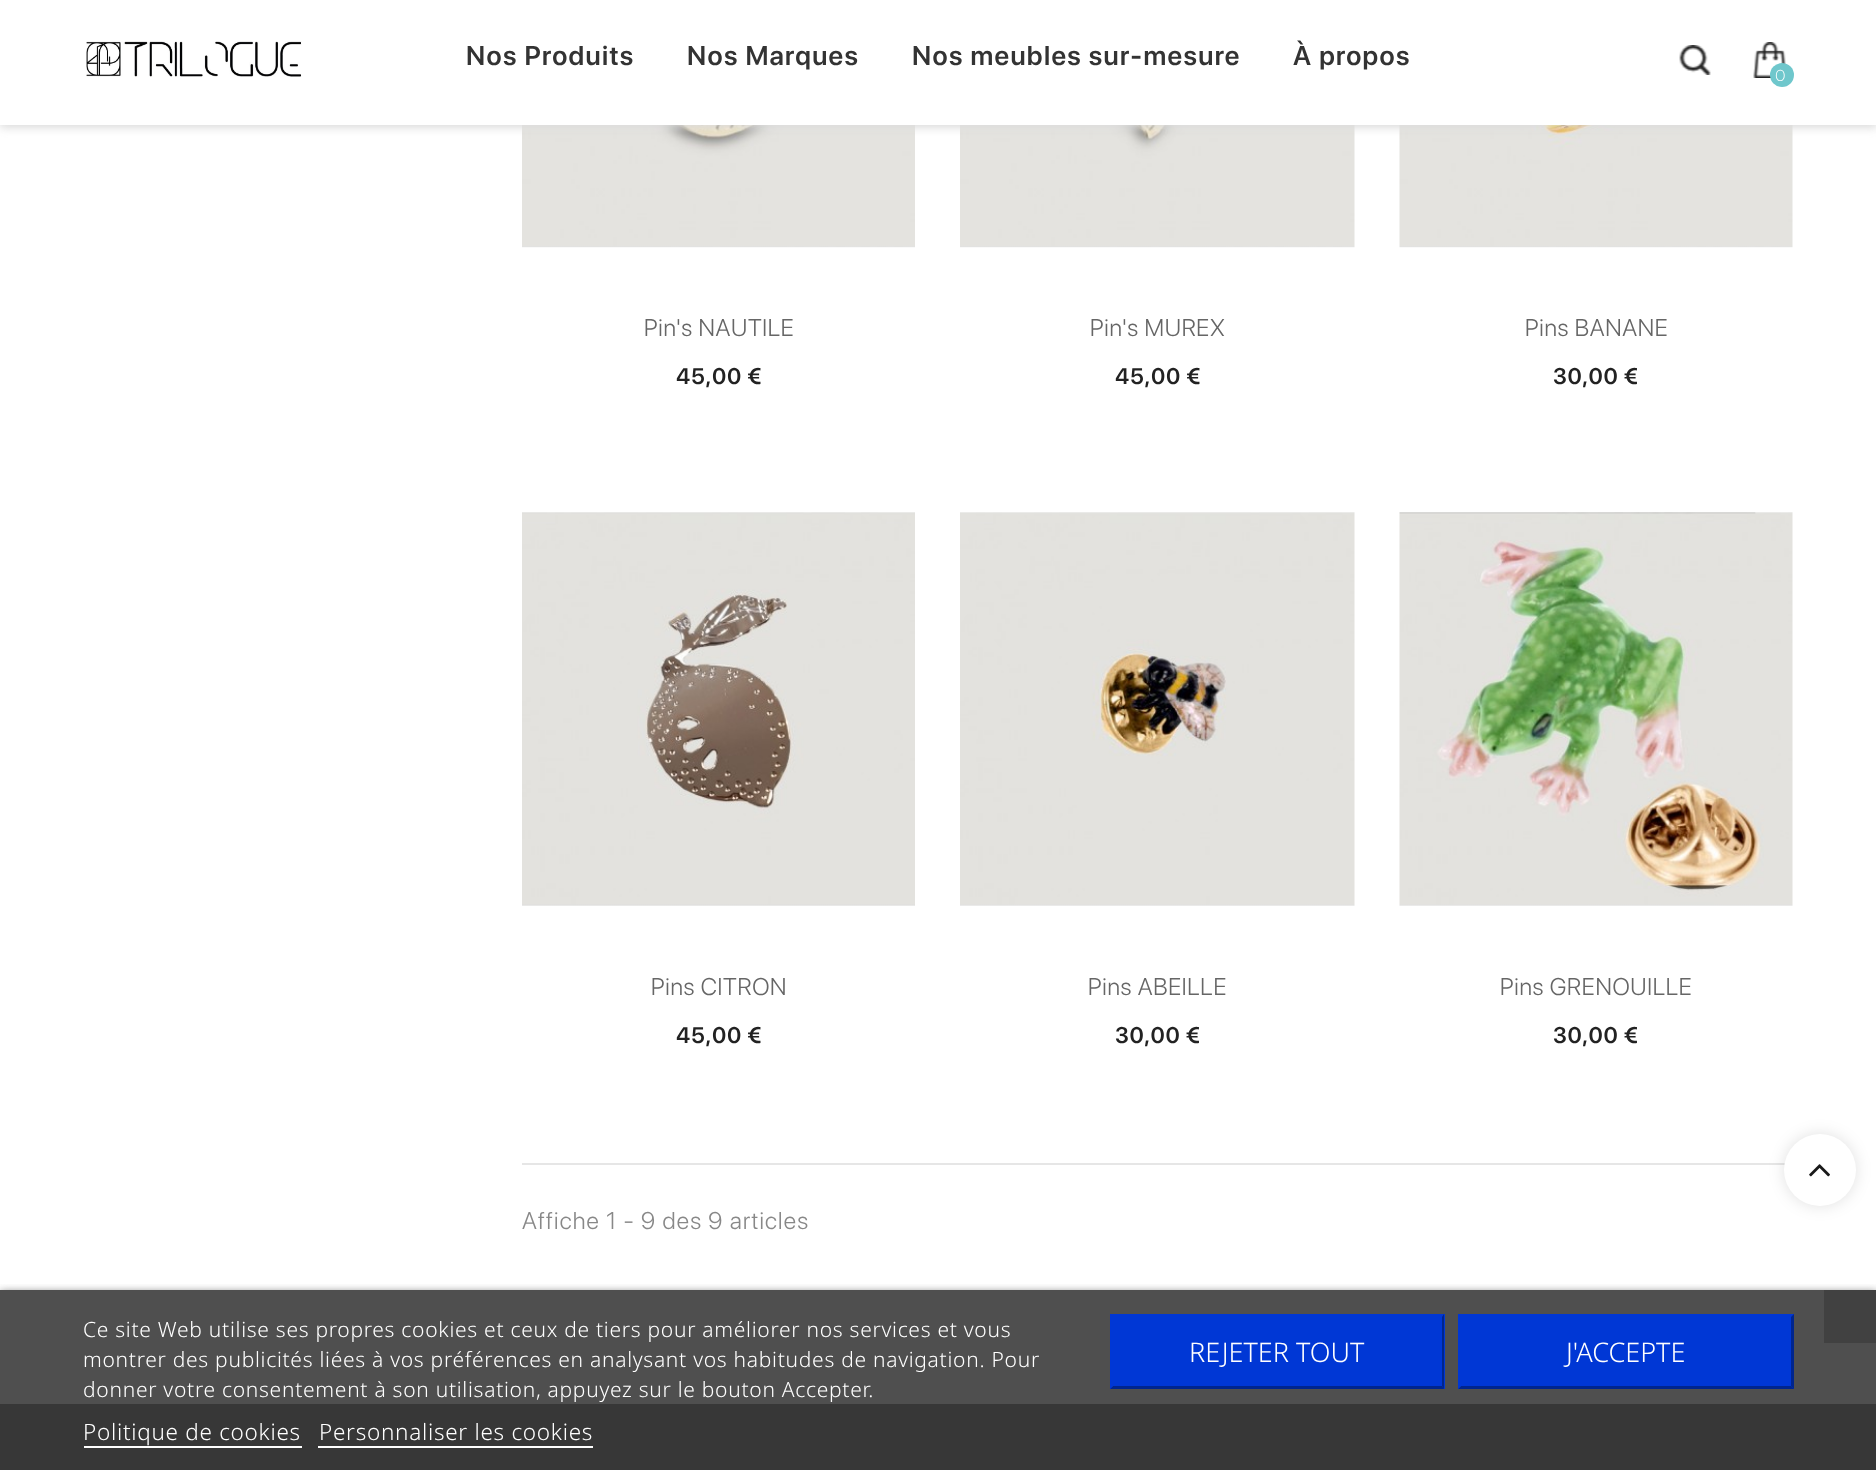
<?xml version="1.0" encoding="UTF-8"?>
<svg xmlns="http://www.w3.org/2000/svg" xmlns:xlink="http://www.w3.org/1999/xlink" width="1876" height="1470">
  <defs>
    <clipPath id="clip1"><rect x="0" y="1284" width="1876" height="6" /></clipPath>
  </defs>
  <rect width="100%" height="100%" fill="#ffffff" />
  <rect y="1290" width="1876" height="114" fill="#4f4f4f" />
  <image x="522" y="125" width="393" height="123" xlink:href="image4.png" />
  <image x="960" y="125" width="395" height="123" xlink:href="image5.png" />
  <image x="1399" y="125" width="394" height="123" xlink:href="image6.png" />
  <rect y="3" width="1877" height="125" fill="#dddddd" filter="blur(4px)" />
  <rect width="1876" height="125" fill="#ffffff" />
  <image x="86" y="41" width="216" height="36" xlink:href="image1.png" />
  <image x="1679" y="45" width="32" height="30" xlink:href="image2.png" />
  <image x="1753" y="42" width="33" height="36" xlink:href="image3.png" />
  <circle cx="1782" cy="75" r="12" fill="#6fc7cc" />
  <image x="522" y="512" width="393" height="394" xlink:href="image7.png" />
  <image x="960" y="512" width="395" height="394" xlink:href="image8.png" />
  <image x="1399" y="512" width="394" height="394" xlink:href="image9.png" />
  <rect x="522" y="1163" width="1263" height="2" fill="#e6e6e6" />
  <rect y="1404" width="1876" height="66" fill="#373737" />
  <rect x="1784" y="1134" width="72" height="72" rx="36" fill="#000000" fill-opacity="0.12" filter="blur(8px)" />
  <circle cx="1820" cy="1170" r="36" fill="#ffffff" />
  <image x="1809" y="1164" width="21" height="13" xlink:href="image10.png" />
  <g clip-path="url(#clip1)">
    <rect y="1292" width="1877" height="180" fill="#707070" filter="blur(4px)" />
  </g>
  <rect x="84" y="1446" width="218" height="2" fill="#ffffff" />
  <rect x="318" y="1446" width="275" height="2" fill="#ffffff" />
  <rect x="1110" y="1314" width="335" height="75" fill="#0037d5" />
  <path d="M 1444 1314 v 75 l -2 -3 v -69 z" fill="#00258e" />
  <path d="M 1444 1389 h -334 l 3 -3 h 329 z" fill="#00258e" />
  <path d="M 1110 1389 v -75 l 3 3 v 69 z" fill="#0037d5" />
  <rect x="1458" y="1314" width="336" height="75" fill="#0037d5" />
  <path d="M 1794 1314 v 75 l -3 -3 v -69 z" fill="#00258e" />
  <path d="M 1794 1389 h -336 l 3 -3 h 330 z" fill="#00258e" />
  <path d="M 1458 1389 v -75 l 3 3 v 69 z" fill="#0037d5" />
  <rect x="1824" y="1290" width="52" height="53" fill="#414141" />
  <text x="466" y="65" style="font-family: SF Pro Display; font-size: 27px; font-weight: 600; letter-spacing: 1.35px; fill: #333333">Nos Produits</text>
  <text x="687" y="65" style="font-family: SF Pro Display; font-size: 27px; font-weight: 600; letter-spacing: 1.35px; fill: #333333">Nos Marques</text>
  <text x="912" y="65" style="font-family: SF Pro Display; font-size: 27px; font-weight: 600; letter-spacing: 1.35px; fill: #333333">Nos meubles sur-mesure</text>
  <text x="1293" y="65" style="font-family: SF Pro Display; font-size: 27px; font-weight: 600; letter-spacing: 1.35px; fill: #333333">À propos</text>
  <text x="1775" y="81" style="font-family: Montserrat; font-size: 16px; font-weight: 300; letter-spacing: 0.72px; fill: #ffffff">0</text>
  <text x="644" y="336" style="font-family: SF Pro Display; font-size: 24px; font-weight: 300; letter-spacing: 0.72px; fill: #666666">Pin's NAUTILE</text>
  <text x="676" y="384" style="font-family: SF Pro Display; font-size: 22.5px; font-weight: 600; letter-spacing: 0.72px; fill: #222222">45,00 €</text>
  <text x="1090" y="336" style="font-family: SF Pro Display; font-size: 24px; font-weight: 300; letter-spacing: 0.72px; fill: #666666">Pin's MUREX</text>
  <text x="1115" y="384" style="font-family: SF Pro Display; font-size: 22.5px; font-weight: 600; letter-spacing: 0.72px; fill: #222222">45,00 €</text>
  <text x="1525" y="336" style="font-family: SF Pro Display; font-size: 24px; font-weight: 300; letter-spacing: 0.72px; fill: #666666">Pins BANANE</text>
  <text x="1553" y="384" style="font-family: SF Pro Display; font-size: 22.5px; font-weight: 600; letter-spacing: 0.72px; fill: #222222">30,00 €</text>
  <text x="651" y="995" style="font-family: SF Pro Display; font-size: 24px; font-weight: 300; letter-spacing: 0.72px; fill: #666666">Pins CITRON</text>
  <text x="676" y="1043" style="font-family: SF Pro Display; font-size: 22.5px; font-weight: 600; letter-spacing: 0.72px; fill: #222222">45,00 €</text>
  <text x="1088" y="995" style="font-family: SF Pro Display; font-size: 24px; font-weight: 300; letter-spacing: 0.72px; fill: #666666">Pins ABEILLE</text>
  <text x="1115" y="1043" style="font-family: SF Pro Display; font-size: 22.5px; font-weight: 600; letter-spacing: 0.72px; fill: #222222">30,00 €</text>
  <text x="1500" y="995" style="font-family: SF Pro Display; font-size: 24px; font-weight: 300; letter-spacing: 0.72px; fill: #666666">Pins GRENOUILLE</text>
  <text x="1553" y="1043" style="font-family: SF Pro Display; font-size: 22.5px; font-weight: 600; letter-spacing: 0.72px; fill: #222222">30,00 €</text>
  <text x="522" y="1229" style="font-family: SF Pro Display; font-size: 24px; font-weight: 300; letter-spacing: 1.2px; fill: #888888">Affiche 1 - 9 des 9 articles</text>
  <text x="83" y="1337" style="font-family: Noto Sans; font-size: 21px; font-weight: 300; letter-spacing: 0.72px; fill: #ffffff">Ce site Web utilise ses propres cookies et ceux de tiers pour améliorer nos services et vous</text>
  <text x="83" y="1367" style="font-family: Noto Sans; font-size: 21px; font-weight: 300; letter-spacing: 0.72px; fill: #ffffff">montrer des publicités liées à vos préférences en analysant vos habitudes de navigation. Pour</text>
  <text x="83" y="1397" style="font-family: Noto Sans; font-size: 21px; font-weight: 300; letter-spacing: 0.72px; fill: #ffffff">donner votre consentement à son utilisation, appuyez sur le bouton Accepter.</text>
  <text x="83" y="1440" style="font-family: Noto Sans; font-size: 22.5px; font-weight: 300; letter-spacing: 0.72px; fill: #ffffff">Politique de cookies</text>
  <text x="319" y="1440" style="font-family: Noto Sans; font-size: 22.5px; font-weight: 300; letter-spacing: 0.72px; fill: #ffffff">Personnaliser les cookies</text>
  <text x="1189" y="1362" style="font-family: Noto Sans; font-size: 27px; font-weight: 300; fill: #ffffff">REJETER TOUT</text>
  <text x="1566" y="1362" style="font-family: Noto Sans; font-size: 27px; font-weight: 300; fill: #ffffff">J'ACCEPTE</text>
</svg>
